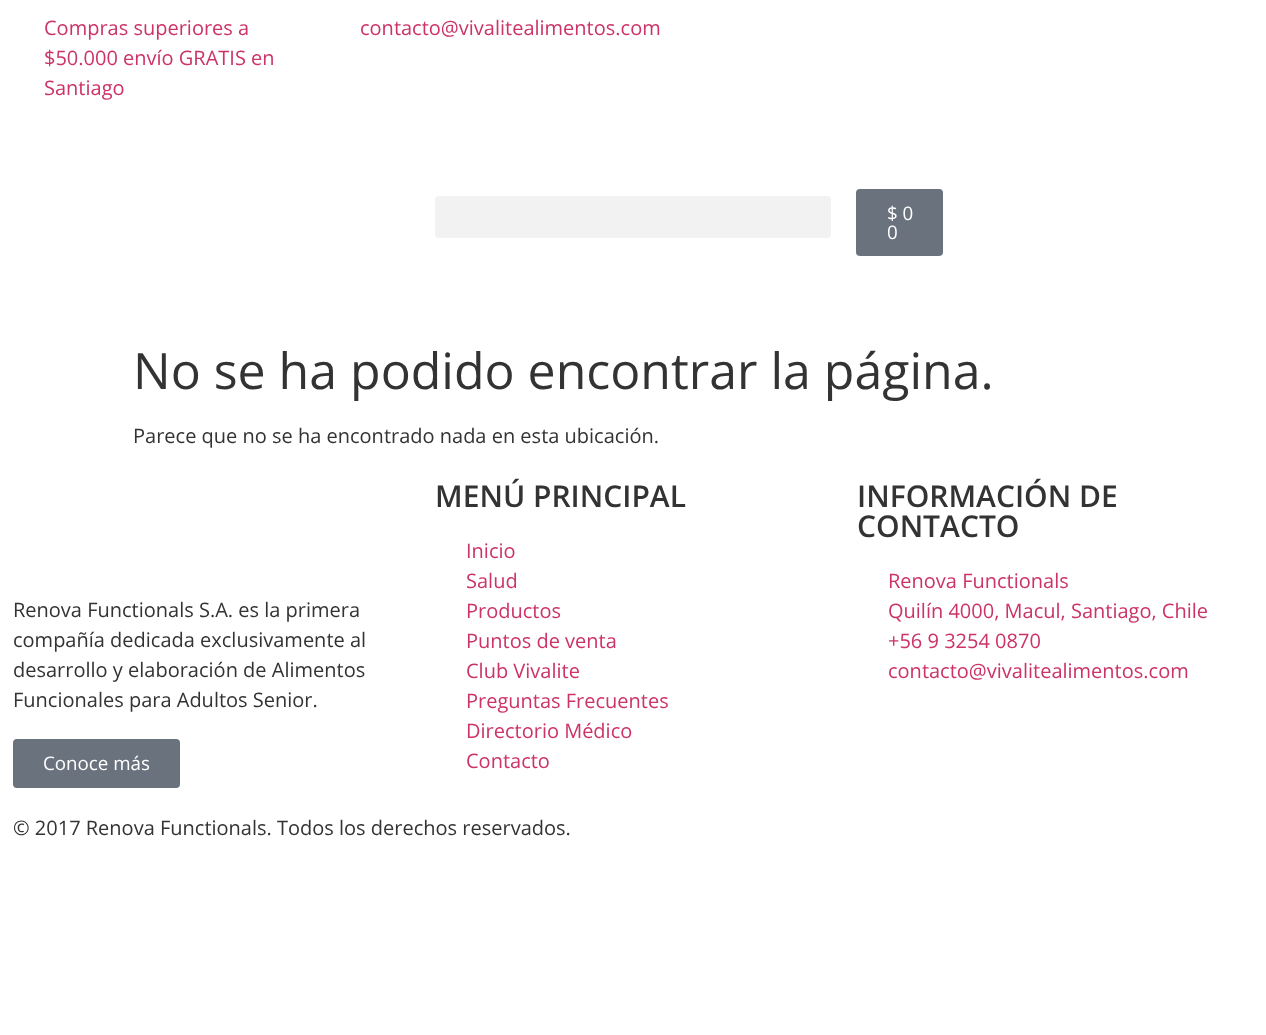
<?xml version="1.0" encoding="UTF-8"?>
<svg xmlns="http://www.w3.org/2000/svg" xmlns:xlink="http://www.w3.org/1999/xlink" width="1266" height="1035">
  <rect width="100%" height="100%" fill="#ffffff" />
  <rect x="435" y="196" width="396" height="42" rx="4" fill="#f2f2f2" />
  <rect x="856" y="189" width="87" height="67" rx="4" fill="#69727d" />
  <rect x="13" y="739" width="167" height="49" rx="4" fill="#69727d" />
  <text x="44" y="35" style="font-family: Open Sans; font-size: 20px; fill: #cc3366">Compras superiores a</text>
  <text x="44" y="65" style="font-family: Open Sans; font-size: 20px; fill: #cc3366">$50.000 envío GRATIS en</text>
  <text x="44" y="95" style="font-family: Open Sans; font-size: 20px; fill: #cc3366">Santiago</text>
  <text x="360" y="35" style="font-family: Open Sans; font-size: 20px; fill: #cc3366">contacto@vivalitealimentos.com</text>
  <text x="887" y="220" style="font-family: Open Sans; font-size: 18.75px; fill: #ffffff">$ 0</text>
  <text x="887" y="239" style="font-family: Open Sans; font-size: 18.75px; fill: #ffffff">0</text>
  <text x="133" y="389" style="font-family: Open Sans; font-size: 50px; fill: #333333">No se ha podido encontrar la página.</text>
  <text x="133" y="443" style="font-family: Open Sans; font-size: 20px; fill: #333333">Parece que no se ha encontrado nada en esta ubicación.</text>
  <text x="13" y="617" style="font-family: Open Sans; font-size: 20px; fill: #333333">Renova Functionals S.A. es la primera</text>
  <text x="13" y="647" style="font-family: Open Sans; font-size: 20px; fill: #333333">compañía dedicada exclusivamente al</text>
  <text x="13" y="677" style="font-family: Open Sans; font-size: 20px; fill: #333333">desarrollo y elaboración de Alimentos</text>
  <text x="13" y="707" style="font-family: Open Sans; font-size: 20px; fill: #333333">Funcionales para Adultos Senior.</text>
  <text x="43" y="770" style="font-family: Open Sans; font-size: 18.75px; fill: #ffffff">Conoce más</text>
  <text x="435" y="507" style="font-family: Open Sans; font-size: 30px; font-weight: 600; fill: #333333">MENÚ PRINCIPAL</text>
  <text x="466" y="558" style="font-family: Open Sans; font-size: 20px; fill: #cc3366">Inicio</text>
  <text x="466" y="588" style="font-family: Open Sans; font-size: 20px; fill: #cc3366">Salud</text>
  <text x="466" y="618" style="font-family: Open Sans; font-size: 20px; fill: #cc3366">Productos</text>
  <text x="466" y="648" style="font-family: Open Sans; font-size: 20px; fill: #cc3366">Puntos de venta</text>
  <text x="466" y="678" style="font-family: Open Sans; font-size: 20px; fill: #cc3366">Club Vivalite</text>
  <text x="466" y="708" style="font-family: Open Sans; font-size: 20px; fill: #cc3366">Preguntas Frecuentes</text>
  <text x="466" y="738" style="font-family: Open Sans; font-size: 20px; fill: #cc3366">Directorio Médico</text>
  <text x="466" y="768" style="font-family: Open Sans; font-size: 20px; fill: #cc3366">Contacto</text>
  <text x="857" y="507" style="font-family: Open Sans; font-size: 30px; font-weight: 600; fill: #333333">INFORMACIÓN DE</text>
  <text x="857" y="537" style="font-family: Open Sans; font-size: 30px; font-weight: 600; fill: #333333">CONTACTO</text>
  <text x="888" y="588" style="font-family: Open Sans; font-size: 20px; fill: #cc3366">Renova Functionals</text>
  <text x="888" y="618" style="font-family: Open Sans; font-size: 20px; fill: #cc3366">Quilín 4000, Macul, Santiago, Chile</text>
  <text x="888" y="648" style="font-family: Open Sans; font-size: 20px; fill: #cc3366">+56 9 3254 0870</text>
  <text x="888" y="678" style="font-family: Open Sans; font-size: 20px; fill: #cc3366">contacto@vivalitealimentos.com</text>
  <text x="13" y="835" style="font-family: Open Sans; font-size: 20px; fill: #333333">© 2017 Renova Functionals. Todos los derechos reservados.</text>
</svg>
